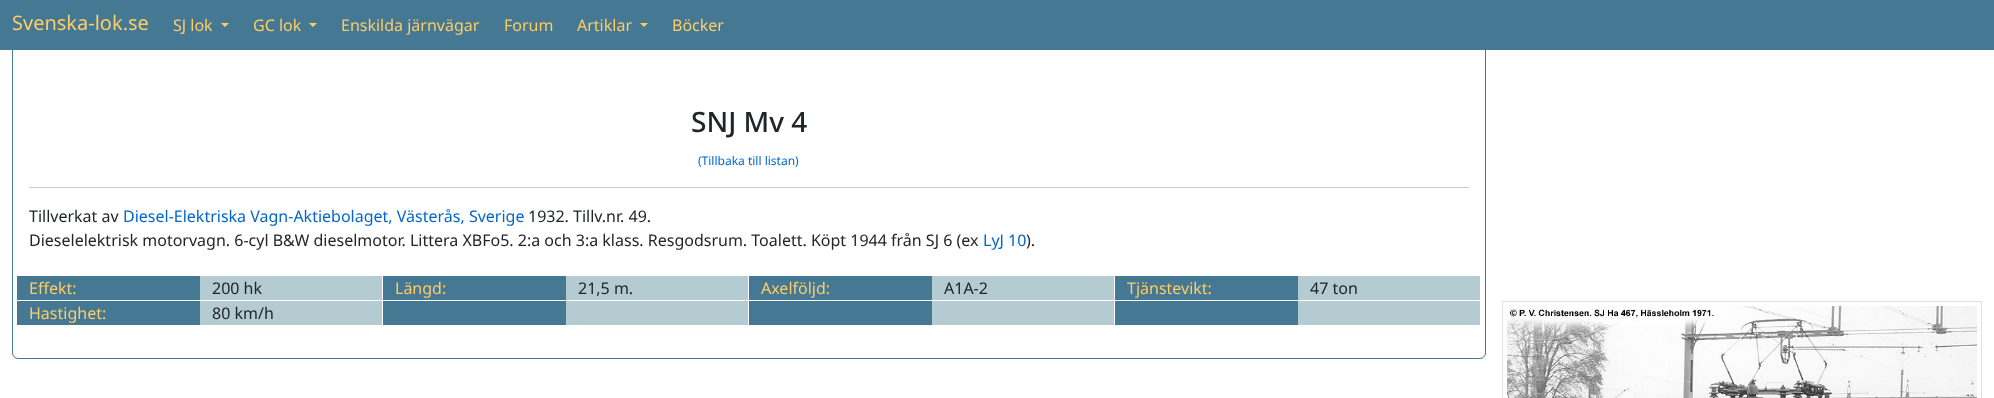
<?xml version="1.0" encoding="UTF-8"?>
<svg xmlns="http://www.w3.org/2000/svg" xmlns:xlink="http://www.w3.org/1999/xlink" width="1994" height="398">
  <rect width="100%" height="100%" fill="#ffffff" />
  <rect x="12.5" y="-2.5" width="1473" height="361" rx="5.5" fill="none" stroke="#457892" />
  <rect width="1994" height="50" fill="#457892" />
  <path d="M 221 23 h 8 l -4 4 z" fill="#ffcc66" />
  <path d="M 309 23 h 8 l -4 4 z" fill="#ffcc66" />
  <path d="M 640 23 h 8 l -4 4 z" fill="#ffcc66" />
  <rect x="29" y="187" width="1440" height="1" fill="#c8c9ca" />
  <rect x="17" y="276" width="183" height="24" fill="#457892" />
  <rect x="200" y="276" width="182" height="24" fill="#b4cbd1" />
  <rect x="383" y="276" width="183" height="24" fill="#457892" />
  <rect x="566" y="276" width="182" height="24" fill="#b4cbd1" />
  <rect x="749" y="276" width="183" height="24" fill="#457892" />
  <rect x="932" y="276" width="182" height="24" fill="#b4cbd1" />
  <rect x="1115" y="276" width="183" height="24" fill="#457892" />
  <rect x="1298" y="276" width="182" height="24" fill="#b4cbd1" />
  <rect x="17" y="301" width="183" height="24" fill="#457892" />
  <rect x="200" y="301" width="182" height="24" fill="#b4cbd1" />
  <rect x="383" y="301" width="183" height="24" fill="#457892" />
  <rect x="566" y="301" width="182" height="24" fill="#b4cbd1" />
  <rect x="749" y="301" width="183" height="24" fill="#457892" />
  <rect x="932" y="301" width="182" height="24" fill="#b4cbd1" />
  <rect x="1115" y="301" width="183" height="24" fill="#457892" />
  <rect x="1298" y="301" width="182" height="24" fill="#b4cbd1" />
  <rect x="1502.5" y="301.5" width="479" height="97" fill="none" stroke="#dee2e6" />
  <image x="1507" y="306" width="470" height="92" xlink:href="image1.png" />
  <text x="12" y="30" style="font-family: Noto Sans; font-size: 20px; fill: #ffcc66">Svenska-lok.se</text>
  <text x="173" y="31" style="font-family: Noto Sans; font-size: 16px; fill: #ffcc66">SJ lok</text>
  <text x="253" y="31" style="font-family: Noto Sans; font-size: 16px; fill: #ffcc66">GC lok</text>
  <text x="341" y="31" style="font-family: Noto Sans; font-size: 16px; fill: #ffcc66">Enskilda järnvägar</text>
  <text x="504" y="31" style="font-family: Noto Sans; font-size: 16px; fill: #ffcc66">Forum</text>
  <text x="577" y="31" style="font-family: Noto Sans; font-size: 16px; fill: #ffcc66">Artiklar</text>
  <text x="672" y="31" style="font-family: Noto Sans; font-size: 16px; fill: #ffcc66">Böcker</text>
  <text x="691" y="132" style="font-family: Noto Sans; font-size: 28px; font-weight: 500; fill: #212529">SNJ Mv 4</text>
  <text x="698" y="165" style="font-family: Noto Sans; font-size: 12px; fill: #0066cc">(Tillbaka till listan)</text>
  <text x="29" y="222" style="font-family: Noto Sans; font-size: 16px; fill: #212529">Tillverkat av</text>
  <text x="123" y="222" style="font-family: Noto Sans; font-size: 16px; fill: #0066cc">Diesel-Elektriska Vagn-Aktiebolaget, Västerås, Sverige</text>
  <text x="528" y="222" style="font-family: Noto Sans; font-size: 16px; fill: #212529">1932. Tillv.nr. 49.</text>
  <text x="29" y="246" style="font-family: Noto Sans; font-size: 16px; fill: #212529">Dieselelektrisk motorvagn. 6-cyl B&amp;W dieselmotor. Littera XBFo5. 2:a och 3:a klass. Resgodsrum. Toalett. Köpt 1944 från SJ 6 (ex</text>
  <text x="983" y="246" style="font-family: Noto Sans; font-size: 16px; fill: #0066cc">LyJ 10</text>
  <text x="1026" y="246" style="font-family: Noto Sans; font-size: 16px; fill: #212529">).</text>
  <text x="29" y="294" style="font-family: Noto Sans; font-size: 16px; fill: #ffcc66">Effekt:</text>
  <text x="212" y="294" style="font-family: Noto Sans; font-size: 16px; fill: #212529">200 hk</text>
  <text x="395" y="294" style="font-family: Noto Sans; font-size: 16px; fill: #ffcc66">Längd:</text>
  <text x="578" y="294" style="font-family: Noto Sans; font-size: 16px; fill: #212529">21,5 m.</text>
  <text x="761" y="294" style="font-family: Noto Sans; font-size: 16px; fill: #ffcc66">Axelföljd:</text>
  <text x="944" y="294" style="font-family: Noto Sans; font-size: 16px; fill: #212529">A1A-2</text>
  <text x="1127" y="294" style="font-family: Noto Sans; font-size: 16px; fill: #ffcc66">Tjänstevikt:</text>
  <text x="1310" y="294" style="font-family: Noto Sans; font-size: 16px; fill: #212529">47 ton</text>
  <text x="29" y="319" style="font-family: Noto Sans; font-size: 16px; fill: #ffcc66">Hastighet:</text>
  <text x="212" y="319" style="font-family: Noto Sans; font-size: 16px; fill: #212529">80 km/h</text>
</svg>
